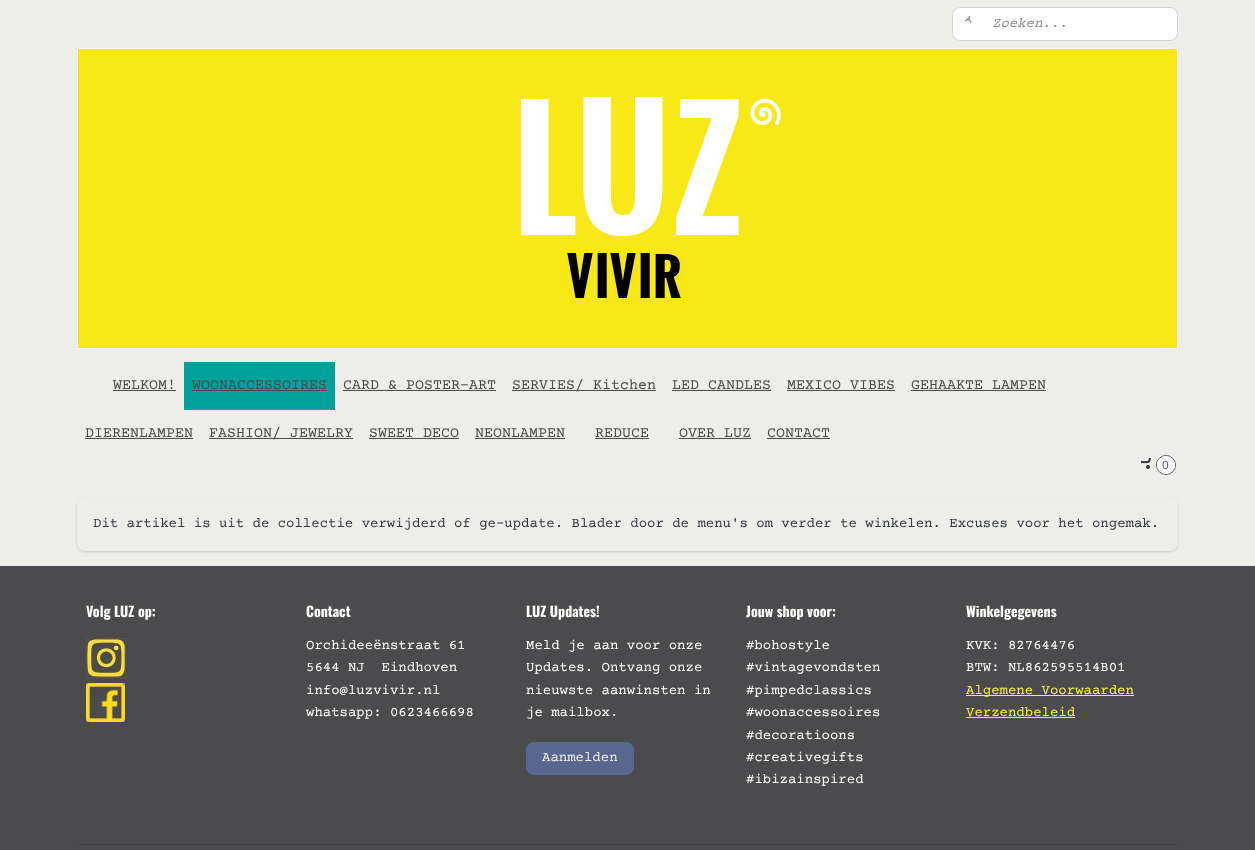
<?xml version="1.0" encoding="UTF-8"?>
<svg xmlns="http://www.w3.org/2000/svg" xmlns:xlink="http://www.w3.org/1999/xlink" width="1255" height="850">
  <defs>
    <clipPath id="clip1"><path d="M 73 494 h 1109 v 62 h -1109 z m 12 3 h 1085 c 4.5 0 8 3.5 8 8 v 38 c 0 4.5 -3.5 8 -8 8 h -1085 c -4.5 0 -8 -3.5 -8 -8 v -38 c 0 -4.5 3.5 -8 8 -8 z" clip-rule="evenodd" /></clipPath>
  </defs>
  <rect width="100%" height="100%" fill="#4b4b4d" />
  <rect width="1255" height="566" fill="#edede9" />
  <rect x="952.5" y="7.5" width="225" height="33" rx="7.5" fill="#ffffff" stroke="#d3d5d9" />
  <image x="965" y="16" width="7" height="7" xlink:href="image1.png" />
  <image x="77" y="48" width="1101" height="301" xlink:href="image2.png" />
  <rect x="113" y="390" width="63" height="1" fill="#4b4b4d" />
  <rect x="184" y="362" width="151" height="48" fill="#00a19a" />
  <rect x="192" y="390" width="135" height="1" fill="#4b4b4d" />
  <rect x="343" y="390" width="153" height="1" fill="#4b4b4d" />
  <rect x="512" y="390" width="144" height="1" fill="#4b4b4d" />
  <rect x="672" y="390" width="99" height="1" fill="#4b4b4d" />
  <rect x="787" y="390" width="108" height="1" fill="#4b4b4d" />
  <rect x="911" y="390" width="135" height="1" fill="#4b4b4d" />
  <rect x="85" y="438" width="108" height="1" fill="#4b4b4d" />
  <rect x="209" y="438" width="144" height="1" fill="#4b4b4d" />
  <rect x="369" y="438" width="90" height="1" fill="#4b4b4d" />
  <rect x="475" y="438" width="90" height="1" fill="#4b4b4d" />
  <rect x="595" y="438" width="54" height="1" fill="#4b4b4d" />
  <rect x="679" y="438" width="72" height="1" fill="#4b4b4d" />
  <rect x="767" y="438" width="63" height="1" fill="#4b4b4d" />
  <image x="1141" y="458" width="10" height="11" xlink:href="image3.png" />
  <circle cx="1166" cy="465" r="9.5" fill="none" stroke="#575b62" />
  <circle cx="1166" cy="465" r="9" fill="#ffffff" />
  <g clip-path="url(#clip1)">
    <rect x="77" y="498" width="1101" height="54" rx="8" fill="#000000" fill-opacity="0.15" filter="blur(1px)" />
  </g>
  <rect x="77.5" y="497.5" width="1100" height="53" rx="7.5" fill="none" stroke="#edede9" />
  <image x="86" y="638" width="40" height="40" xlink:href="image4.png" />
  <image x="86" y="683" width="39" height="39" xlink:href="image5.png" />
  <rect x="526" y="742" width="108" height="33" rx="8" fill="#58678f" />
  <rect x="966" y="695" width="168" height="1" fill="#fff23b" />
  <rect x="966" y="717" width="109" height="1" fill="#fff23b" />
  <rect x="78" y="844" width="1100" height="1" fill="#404041" />
  <text x="992" y="27" style="font-family: Courier Prime; font-size: 14px; font-style: italic; fill: #898c91">Zoeken...</text>
  <text x="113" y="389" style="font-family: Courier Prime; font-size: 15px; fill: #4b4b4d">WELKOM!</text>
  <text x="192" y="389" style="font-family: Courier Prime; font-size: 15px; fill: #4b4b4d">WOONACCESSOIRES</text>
  <text x="343" y="389" style="font-family: Courier Prime; font-size: 15px; fill: #4b4b4d">CARD &amp; POSTER-ART</text>
  <text x="512" y="389" style="font-family: Courier Prime; font-size: 15px; fill: #4b4b4d">SERVIES/ Kitchen</text>
  <text x="672" y="389" style="font-family: Courier Prime; font-size: 15px; fill: #4b4b4d">LED CANDLES</text>
  <text x="787" y="389" style="font-family: Courier Prime; font-size: 15px; fill: #4b4b4d">MEXICO VIBES</text>
  <text x="911" y="389" style="font-family: Courier Prime; font-size: 15px; fill: #4b4b4d">GEHAAKTE LAMPEN</text>
  <text x="85" y="437" style="font-family: Courier Prime; font-size: 15px; fill: #4b4b4d">DIERENLAMPEN</text>
  <text x="209" y="437" style="font-family: Courier Prime; font-size: 15px; fill: #4b4b4d">FASHION/ JEWELRY</text>
  <text x="369" y="437" style="font-family: Courier Prime; font-size: 15px; fill: #4b4b4d">SWEET DECO</text>
  <text x="475" y="437" style="font-family: Courier Prime; font-size: 15px; fill: #4b4b4d">NEONLAMPEN</text>
  <text x="595" y="437" style="font-family: Courier Prime; font-size: 15px; fill: #4b4b4d">REDUCE</text>
  <text x="679" y="437" style="font-family: Courier Prime; font-size: 15px; fill: #4b4b4d">OVER LUZ</text>
  <text x="767" y="437" style="font-family: Courier Prime; font-size: 15px; fill: #4b4b4d">CONTACT</text>
  <text x="1162" y="469" style="font-family: Liberation Sans; font-size: 12px; fill: #575b62">0</text>
  <text x="93" y="527" style="font-family: Courier Prime; font-size: 14px; fill: #333740">Dit artikel is uit de collectie verwijderd of ge-update. Blader door de menu's om verder te winkelen. Excuses voor het ongemak.</text>
  <text x="86" y="617" style="font-family: Oswald; font-size: 14px; font-weight: bold; fill: #fffffc">Volg LUZ op:</text>
  <text x="306" y="617" style="font-family: Oswald; font-size: 14px; font-weight: bold; fill: #fffffc">Contact</text>
  <text x="306" y="649" style="font-family: Courier Prime; font-size: 14px; fill: #fffffc">Orchideeënstraat 61</text>
  <text x="306" y="671" style="font-family: Courier Prime; font-size: 14px; fill: #fffffc" xml:space="preserve">5644 NJ  Eindhoven</text>
  <text x="306" y="694" style="font-family: Courier Prime; font-size: 14px; fill: #fffffc">info@luzvivir.nl</text>
  <text x="306" y="716" style="font-family: Courier Prime; font-size: 14px; fill: #fffffc">whatsapp: 0623466698</text>
  <text x="526" y="617" style="font-family: Oswald; font-size: 14px; font-weight: bold; fill: #fffffc">LUZ Updates!</text>
  <text x="526" y="649" style="font-family: Courier Prime; font-size: 14px; fill: #fffffc">Meld je aan voor onze</text>
  <text x="526" y="671" style="font-family: Courier Prime; font-size: 14px; fill: #fffffc">Updates. Ontvang onze</text>
  <text x="526" y="694" style="font-family: Courier Prime; font-size: 14px; fill: #fffffc">nieuwste aanwinsten in</text>
  <text x="526" y="716" style="font-family: Courier Prime; font-size: 14px; fill: #fffffc">je mailbox.</text>
  <text x="542" y="761" style="font-family: Courier Prime; font-size: 14px; fill: #edede9">Aanmelden</text>
  <text x="746" y="617" style="font-family: Oswald; font-size: 14px; font-weight: bold; fill: #fffffc">Jouw shop voor:</text>
  <text x="746" y="649" style="font-family: Courier Prime; font-size: 14px; fill: #fffffc">#bohostyle</text>
  <text x="746" y="671" style="font-family: Courier Prime; font-size: 14px; fill: #fffffc">#vintagevondsten</text>
  <text x="746" y="694" style="font-family: Courier Prime; font-size: 14px; fill: #fffffc">#pimpedclassics</text>
  <text x="746" y="716" style="font-family: Courier Prime; font-size: 14px; fill: #fffffc">#woonaccessoires</text>
  <text x="746" y="739" style="font-family: Courier Prime; font-size: 14px; fill: #fffffc">#decoratioons</text>
  <text x="746" y="761" style="font-family: Courier Prime; font-size: 14px; fill: #fffffc">#creativegifts</text>
  <text x="746" y="783" style="font-family: Courier Prime; font-size: 14px; fill: #fffffc">#ibizainspired</text>
  <text x="966" y="617" style="font-family: Oswald; font-size: 14px; font-weight: bold; fill: #fffffc">Winkelgegevens</text>
  <text x="966" y="649" style="font-family: Courier Prime; font-size: 14px; fill: #fffffc">KVK: 82764476</text>
  <text x="966" y="671" style="font-family: Courier Prime; font-size: 14px; fill: #fffffc">BTW: NL862595514B01</text>
  <text x="966" y="694" style="font-family: Courier Prime; font-size: 14px; fill: #fff23b">Algemene Voorwaarden</text>
  <text x="966" y="716" style="font-family: Courier Prime; font-size: 14px; fill: #fff23b">Verzendbeleid</text>
</svg>
